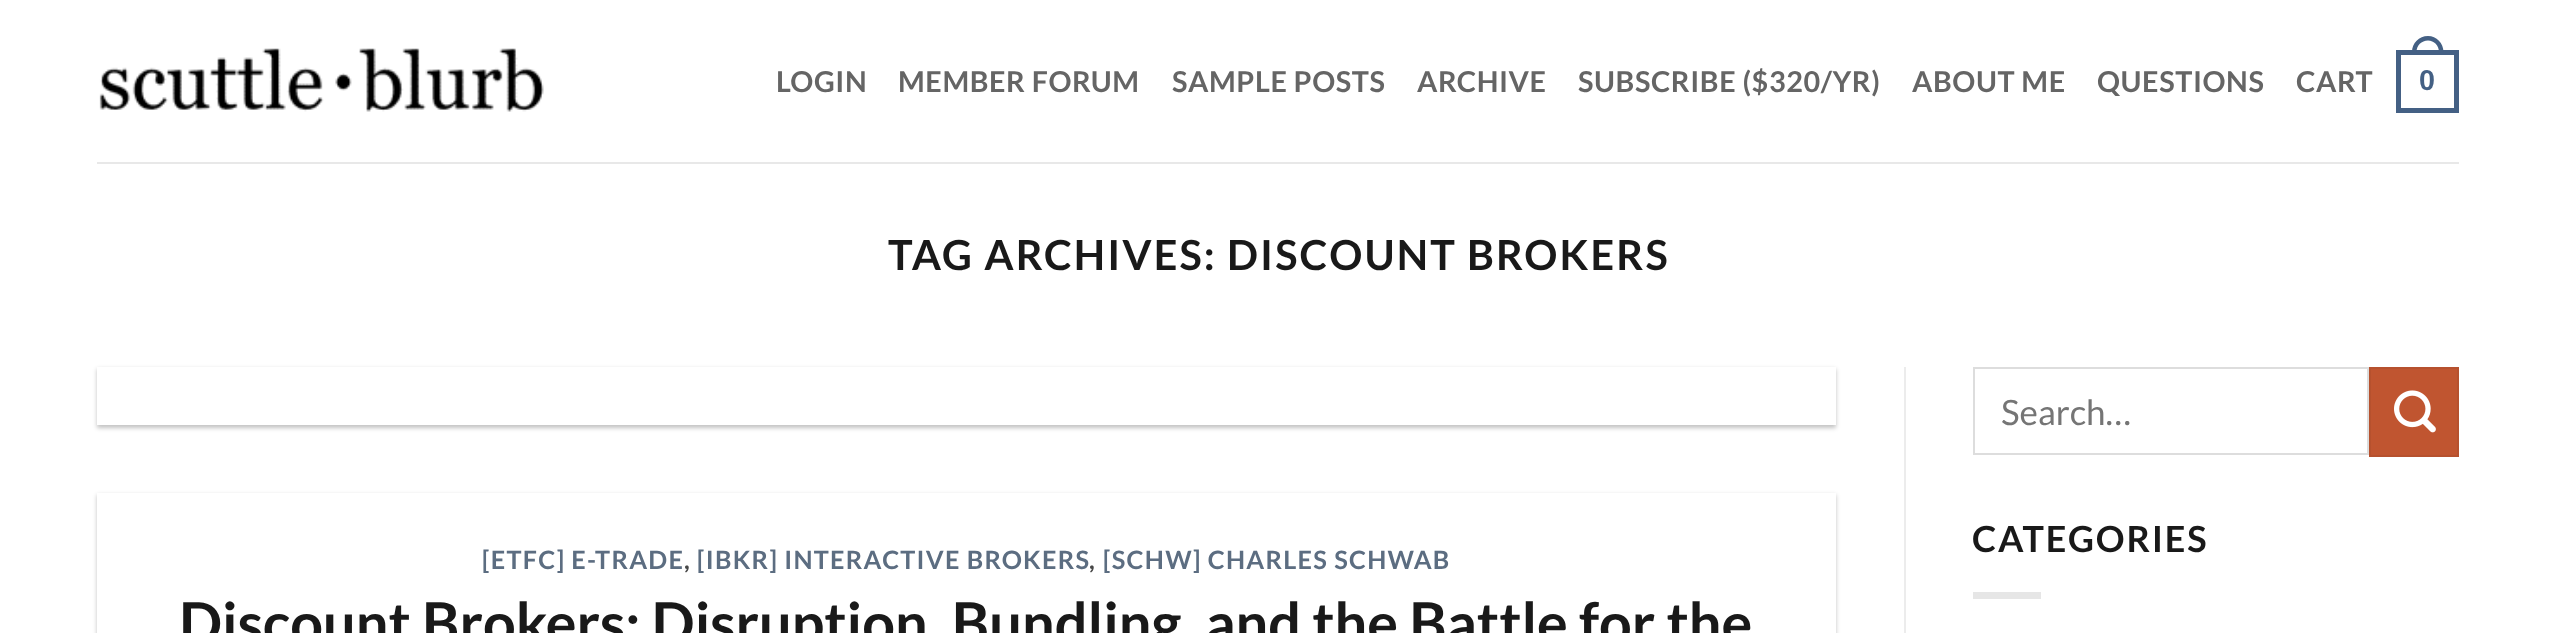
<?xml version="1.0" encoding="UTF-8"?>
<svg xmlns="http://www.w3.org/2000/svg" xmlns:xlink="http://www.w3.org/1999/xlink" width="2554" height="633">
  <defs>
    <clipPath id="clip1"><path d="M 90 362 h 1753 v 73 h -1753 z m 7 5 h 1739 v 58 h -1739 z" clip-rule="evenodd" /></clipPath>
    <clipPath id="clip2"><path d="M 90 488 h 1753 v 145 h -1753 z m 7 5 h 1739 v 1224 h -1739 z" clip-rule="evenodd" /></clipPath>
  </defs>
  <rect width="100%" height="100%" fill="#ffffff" />
  <image x="99" y="48" width="445" height="64" xlink:href="image1.png" />
  <rect x="2398.5" y="52.5" width="58" height="58" fill="none" stroke="#446084" stroke-width="5" />
  <path d="M 2428 36 c 8.5 0 15.5 7 15.5 16 v 2 h -31.5 v -2 c 0 -9 7 -16 16 -16 z m 0 4.5 c 6 0 11 5 11 11.5 v 2 h -22.5 v -2 c 0 -6.5 5 -11.5 11.5 -11.5 z" fill="#446084" fill-rule="evenodd" />
  <rect x="97" y="162" width="2362" height="2" fill="#e8e8e8" />
  <rect x="1904" y="367" width="2" height="266" fill="#ececec" />
  <rect x="1974" y="368" width="394" height="86" fill="none" stroke="#dddddd" stroke-width="2" />
  <rect x="2370" y="368" width="88" height="88" fill="#c05530" stroke="#b6512e" stroke-width="2" />
  <image x="2394" y="390" width="42" height="43" xlink:href="image2.png" />
  <rect x="1973" y="592" width="68" height="7" fill="#e6e6e6" />
  <g clip-path="url(#clip1)">
    <rect x="97" y="369" width="1739" height="59" fill="#000000" fill-opacity="0.24" filter="blur(2px)" />
  </g>
  <g clip-path="url(#clip2)">
    <rect x="97" y="495" width="1739" height="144" fill="#000000" fill-opacity="0.24" filter="blur(2px)" />
  </g>
  <text x="776" y="92" style="font-family: Lato; font-size: 28.75px; font-weight: bold; letter-spacing: 0.6px; fill: #656565">LOGIN</text>
  <text x="898" y="92" style="font-family: Lato; font-size: 28.75px; font-weight: bold; letter-spacing: 0.6px; fill: #656565">MEMBER FORUM</text>
  <text x="1172" y="92" style="font-family: Lato; font-size: 28.75px; font-weight: bold; letter-spacing: 0.6px; fill: #656565">SAMPLE POSTS</text>
  <text x="1417" y="92" style="font-family: Lato; font-size: 28.75px; font-weight: bold; letter-spacing: 0.6px; fill: #656565">ARCHIVE</text>
  <text x="1578" y="92" style="font-family: Lato; font-size: 28.75px; font-weight: bold; letter-spacing: 0.6px; fill: #656565">SUBSCRIBE ($320/YR)</text>
  <text x="1912" y="92" style="font-family: Lato; font-size: 28.75px; font-weight: bold; letter-spacing: 0.6px; fill: #656565">ABOUT ME</text>
  <text x="2097" y="92" style="font-family: Lato; font-size: 28.75px; font-weight: bold; letter-spacing: 0.6px; fill: #656565">QUESTIONS</text>
  <text x="2296" y="92" style="font-family: Lato; font-size: 28.75px; font-weight: bold; letter-spacing: 0.6px; fill: #656565">CART</text>
  <text x="2419" y="90" style="font-family: Liberation Sans; font-size: 28.75px; font-weight: bold; letter-spacing: 0.6px; fill: #446084">0</text>
  <text x="888" y="270" style="font-family: Lato; font-size: 41.4px; font-weight: bold; letter-spacing: 2.1px; fill: #191919">TAG ARCHIVES: DISCOUNT BROKERS</text>
  <text x="2001" y="425" style="font-family: Lato; font-size: 35px; fill: #757575">Search…</text>
  <text x="1972" y="552" style="font-family: Lato; font-size: 36px; font-weight: bold; letter-spacing: 1.75px; fill: #191919">CATEGORIES</text>
  <text x="482" y="569" style="font-family: Lato; font-size: 25.25px; font-weight: bold; letter-spacing: 1.25px; fill: #5c6d81">[ETFC] E-TRADE</text>
  <text x="684" y="569" style="font-family: Lato; font-size: 25.25px; font-weight: bold; letter-spacing: 1.25px; fill: #474747">,</text>
  <text x="697" y="569" style="font-family: Lato; font-size: 25.25px; font-weight: bold; letter-spacing: 1.25px; fill: #5c6d81">[IBKR] INTERACTIVE BROKERS</text>
  <text x="1089" y="569" style="font-family: Lato; font-size: 25.25px; font-weight: bold; letter-spacing: 1.25px; fill: #474747">,</text>
  <text x="1103" y="569" style="font-family: Lato; font-size: 25.25px; font-weight: bold; letter-spacing: 1.25px; fill: #5c6d81">[SCHW] CHARLES SCHWAB</text>
  <text x="179" y="644" style="font-family: Lato; font-size: 57.6px; font-weight: bold; fill: #191919">Discount Brokers: Disruption, Bundling, and the Battle for the</text>
</svg>
